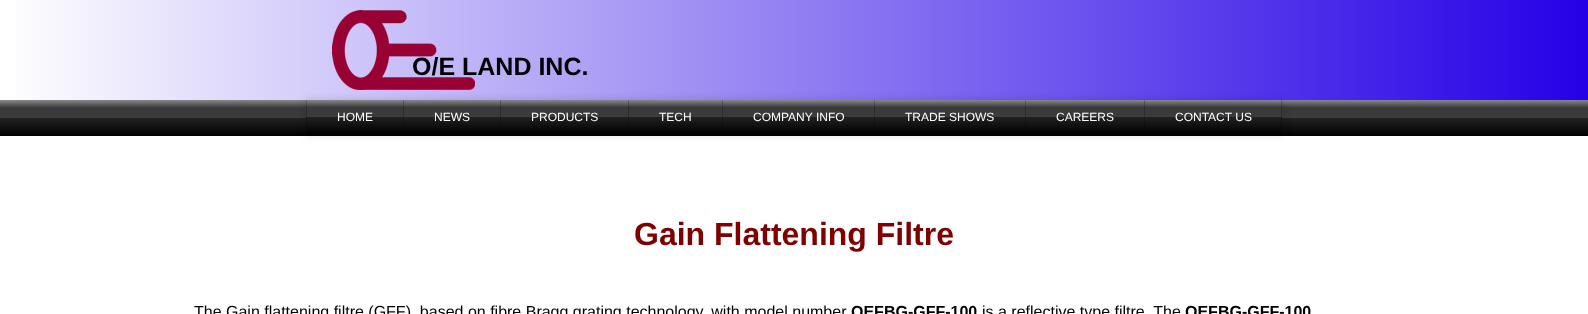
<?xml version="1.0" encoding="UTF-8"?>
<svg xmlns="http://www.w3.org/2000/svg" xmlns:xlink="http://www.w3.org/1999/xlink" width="1588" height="314">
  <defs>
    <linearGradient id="g1" gradientUnits="userSpaceOnUse" x1="0" y1="50" x2="1588" y2="50"><stop offset="0" stop-color="#ffffff" /><stop offset="1" stop-color="#2600e6" /></linearGradient>
    <linearGradient id="g2" gradientUnits="userSpaceOnUse" x1="794" y1="136" x2="794" y2="100"><stop offset="0" stop-color="#000000" /><stop offset="0.5" stop-color="#222222" /><stop offset="0.51" stop-color="#3c3c3c" /><stop offset="0.78" stop-color="#393939" /><stop offset="1" stop-color="#888888" /></linearGradient>
    <linearGradient id="g3" gradientUnits="userSpaceOnUse" x1="795" y1="134" x2="795" y2="100"><stop offset="0" stop-color="#000000" /><stop offset="0.5" stop-color="#222222" /><stop offset="0.51" stop-color="#3c3c3c" /><stop offset="0.78" stop-color="#393939" /><stop offset="1" stop-color="#888888" /></linearGradient>
    <linearGradient id="g4" gradientUnits="userSpaceOnUse" x1="795" y1="134" x2="795" y2="100"><stop offset="0" stop-color="#000000" /><stop offset="0.5" stop-color="#1b1b1b" /><stop offset="0.51" stop-color="#2f2f2f" /><stop offset="0.78" stop-color="#2c2c2c" /><stop offset="1" stop-color="#6a6a6a" /></linearGradient>
  </defs>
  <rect width="100%" height="100%" fill="#ffffff" />
  <rect x="16" width="1572" height="100" fill="url(#g1)" />
  <image x="332" y="10" width="143" height="80" xlink:href="image1.png" />
  <rect y="100" width="1588" height="36" fill="url(#g2)" />
  <rect x="306" y="100" width="976" height="34" fill="#000000" fill-opacity="0.15" filter="blur(4.5px)" />
  <rect x="307" y="100" width="974" height="34" fill="url(#g3)" />
  <rect x="1281" y="100" width="1" height="34" fill="url(#g4)" />
  <rect x="1144" y="100" width="1" height="34" fill="url(#g4)" />
  <rect x="1025" y="100" width="1" height="34" fill="url(#g4)" />
  <rect x="874" y="100" width="1" height="34" fill="url(#g4)" />
  <rect x="722" y="100" width="1" height="34" fill="url(#g4)" />
  <rect x="628" y="100" width="1" height="34" fill="url(#g4)" />
  <rect x="500" y="100" width="1" height="34" fill="url(#g4)" />
  <rect x="403" y="100" width="1" height="34" fill="url(#g4)" />
  <rect x="306" y="100" width="1" height="34" fill="url(#g4)" />
  <text x="412" y="75" style="font-family: Liberation Sans; font-size: 25px; font-weight: bold; fill: #000000">O/E LAND INC.</text>
  <text x="337" y="121" style="font-family: Liberation Sans; font-size: 12px; fill: #ffffff">HOME</text>
  <text x="434" y="121" style="font-family: Liberation Sans; font-size: 12px; fill: #ffffff">NEWS</text>
  <text x="531" y="121" style="font-family: Liberation Sans; font-size: 12px; fill: #ffffff">PRODUCTS</text>
  <text x="659" y="121" style="font-family: Liberation Sans; font-size: 12px; fill: #ffffff">TECH</text>
  <text x="753" y="121" style="font-family: Liberation Sans; font-size: 12px; fill: #ffffff">COMPANY INFO</text>
  <text x="905" y="121" style="font-family: Liberation Sans; font-size: 12px; fill: #ffffff">TRADE SHOWS</text>
  <text x="1056" y="121" style="font-family: Liberation Sans; font-size: 12px; fill: #ffffff">CAREERS</text>
  <text x="1175" y="121" style="font-family: Liberation Sans; font-size: 12px; fill: #ffffff">CONTACT US</text>
  <text x="634" y="245" style="font-family: Liberation Sans; font-size: 32px; font-weight: bold; fill: #800000">Gain Flattening Filtre</text>
  <text x="194" y="317" style="font-family: Liberation Sans; font-size: 16px; fill: #000000">The Gain flattening filtre (GFF), based on fibre Bragg grating technology, with model number</text>
  <text x="851" y="317" style="font-family: Liberation Sans; font-size: 16px; font-weight: bold; fill: #000000">OEFBG-GFF-100</text>
  <text x="982" y="317" style="font-family: Liberation Sans; font-size: 16px; fill: #000000">is a reflective type filtre. The</text>
  <text x="1185" y="317" style="font-family: Liberation Sans; font-size: 16px; font-weight: bold; fill: #000000">OEFBG-GFF-100</text>
</svg>
